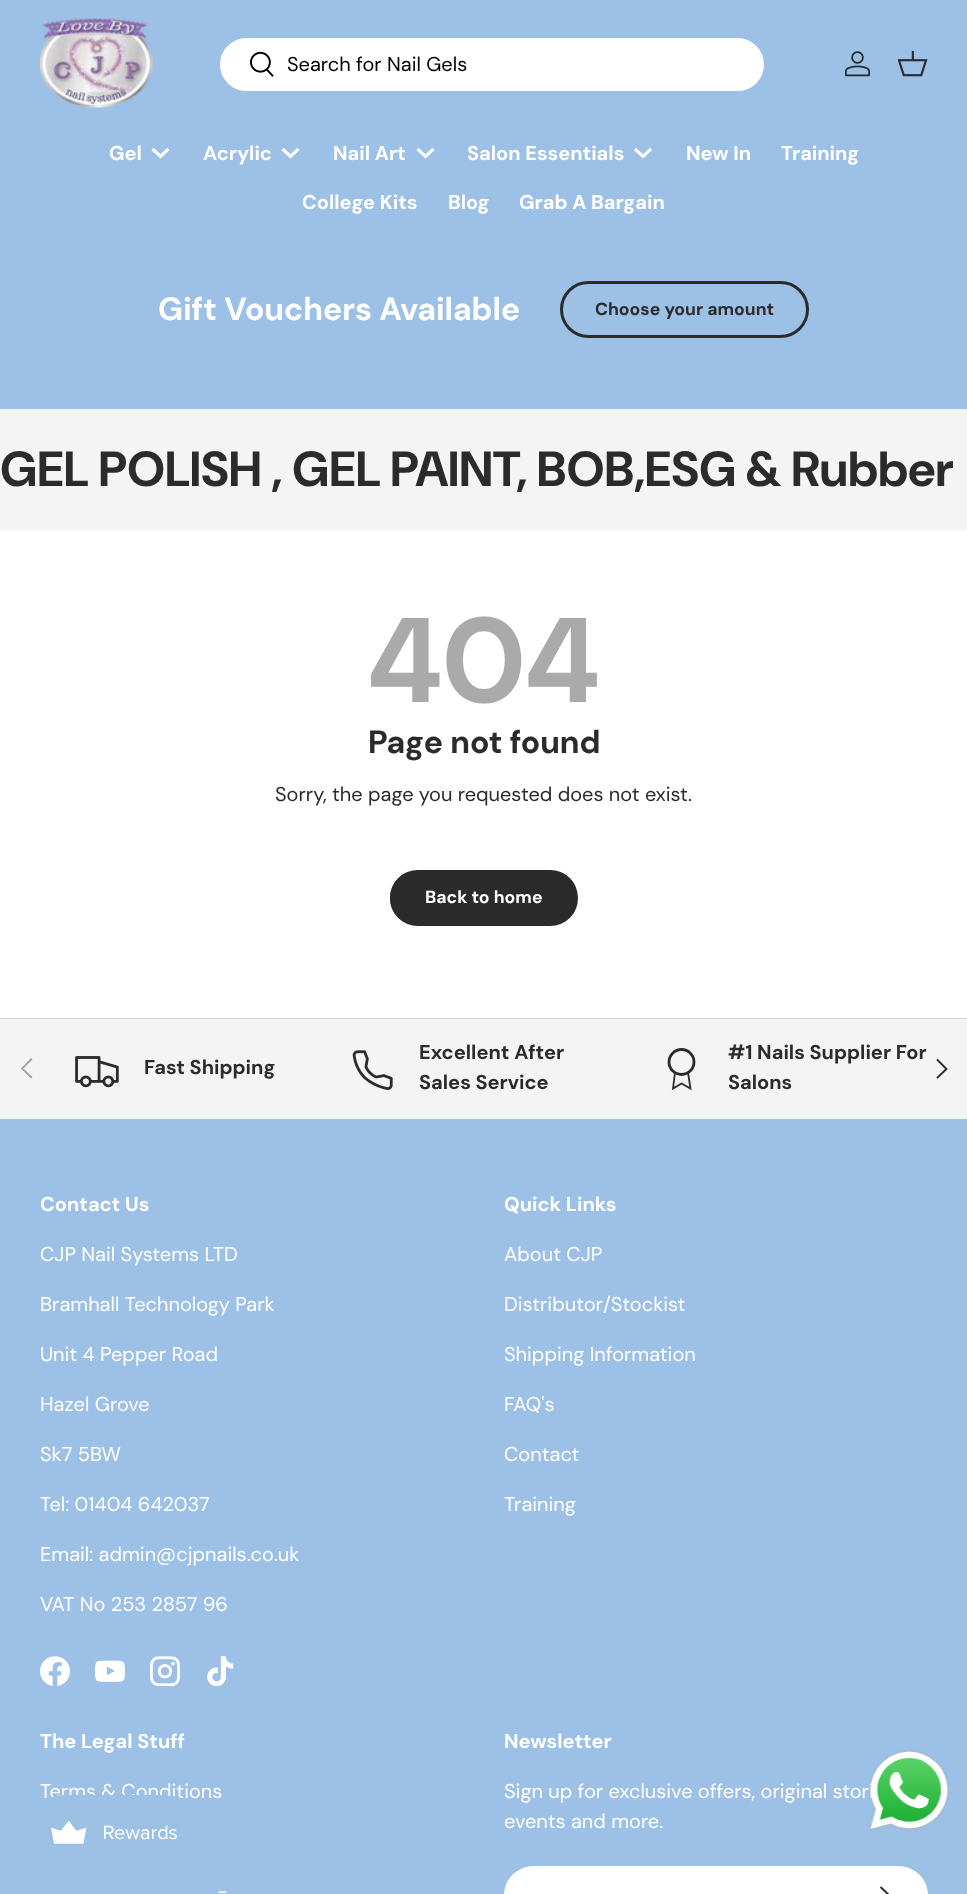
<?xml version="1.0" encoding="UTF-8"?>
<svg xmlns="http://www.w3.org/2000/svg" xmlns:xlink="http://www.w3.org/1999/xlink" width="967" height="1894">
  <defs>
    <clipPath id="clip1"><rect x="390" y="870" width="188" height="56" rx="28" /></clipPath>
    <linearGradient id="g1" gradientUnits="userSpaceOnUse" x1="38" y1="832" x2="565" y2="964"><stop offset="0.6" stop-color="#525352" /><stop offset="0.6" stop-color="#2a2b2a" /><stop offset="1" stop-color="#2a2b2a" /></linearGradient>
  </defs>
  <rect width="100%" height="100%" fill="#ffffff" />
  <rect width="967" height="409" fill="#9dc0e6" />
  <image x="40" y="18" width="113" height="90" xlink:href="image1.png" />
  <rect x="220" y="38" width="544" height="53" rx="26.5" fill="#ffffff" />
  <image x="250" y="51" width="24" height="26" xlink:href="image2.png" />
  <image x="845" y="51" width="25" height="26" xlink:href="image3.png" />
  <image x="898" y="50" width="30" height="27" xlink:href="image4.png" />
  <path d="M 168.5 149 l -8 7.5 l -8 -7.5" fill="none" stroke="#ffffff" stroke-width="3.1" />
  <path d="M 298.5 149 l -8 7.5 l -8 -7.5" fill="none" stroke="#ffffff" stroke-width="3.1" />
  <path d="M 433.5 149 l -8 7.5 l -8 -7.5" fill="none" stroke="#ffffff" stroke-width="3.1" />
  <path d="M 651 149 l -8 7.5 l -8 -7.5" fill="none" stroke="#ffffff" stroke-width="3.1" />
  <rect x="561.5" y="282.5" width="246" height="54" rx="27" fill="none" stroke="#2a2b2a" stroke-width="3" />
  <rect y="409" width="967" height="121" fill="#f4f4f4" />
  <g clip-path="url(#clip1)">
    <rect x="390" y="873" width="185" height="51" fill="url(#g1)" />
  </g>
  <rect x="391.5" y="871.5" width="185" height="53" rx="26.5" fill="none" stroke="#2a2b2a" stroke-width="3" />
  <rect y="1019" width="967" height="100" fill="#f4f4f4" />
  <rect y="1018" width="967" height="1" fill="#d6d6d6" />
  <image x="75" y="1056" width="44" height="32" xlink:href="image5.png" />
  <image x="352" y="1050" width="41" height="40" xlink:href="image6.png" />
  <circle cx="681.5" cy="1062" r="12.5" fill="none" stroke="#2a2b2a" stroke-width="2.8" />
  <path d="M 675 1072.5 l -2 16 l 8.5 -5 l 9 5 l -2.5 -16" fill="none" stroke="#2a2b2a" stroke-width="1.8" />
  <path d="M 21 1068.5 l 10 -10.5 l 1.5 1.5 l -9 9 l 9 8.5 l -1.5 1.5 z" fill="#a3a4a3" />
  <path d="M 937 1059.5 l 9.5 9.5 l -9.5 9" fill="none" stroke="#2a2b2a" stroke-width="1.9" />
  <rect y="1119" width="967" height="775" fill="#9dc0e6" />
  <image x="40" y="1656" width="30" height="30" xlink:href="image7.png" />
  <image x="95" y="1660" width="30" height="22" xlink:href="image8.png" />
  <image x="150" y="1656" width="30" height="30" xlink:href="image9.png" />
  <image x="207" y="1656" width="27" height="30" xlink:href="image10.png" />
  <rect x="504" y="1866" width="424" height="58" rx="30" fill="#ffffff" />
  <rect x="505.5" y="1867.5" width="421" height="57" rx="28.5" fill="none" stroke="#ffffff" stroke-opacity="0.2" stroke-width="3" />
  <path d="M 871 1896 h 18 m -8.5 -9 l 9.5 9 l -9.5 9.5" fill="none" stroke="#2a2b2a" stroke-width="1.9" />
  <text x="287" y="71" style="font-family: DM Sans; font-size: 20px; fill: #000000">Search for Nail Gels</text>
  <text x="109" y="160" style="font-family: 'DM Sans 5'; font-size: 20px; font-weight: bold; fill: #ffffff">Gel</text>
  <text x="203" y="160" style="font-family: 'DM Sans 5'; font-size: 20px; font-weight: bold; fill: #ffffff">Acrylic</text>
  <text x="333" y="160" style="font-family: 'DM Sans 5'; font-size: 20px; font-weight: bold; fill: #ffffff">Nail Art</text>
  <text x="467" y="160" style="font-family: 'DM Sans 5'; font-size: 20px; font-weight: bold; fill: #ffffff">Salon Essentials</text>
  <text x="686" y="160" style="font-family: 'DM Sans 5'; font-size: 20px; font-weight: bold; fill: #ffffff">New In</text>
  <text x="781" y="160" style="font-family: 'DM Sans 5'; font-size: 20px; font-weight: bold; fill: #ffffff">Training</text>
  <text x="302" y="209" style="font-family: 'DM Sans 5'; font-size: 20px; font-weight: bold; fill: #ffffff">College Kits</text>
  <text x="448" y="209" style="font-family: 'DM Sans 5'; font-size: 20px; font-weight: bold; fill: #ffffff">Blog</text>
  <text x="519" y="209" style="font-family: 'DM Sans 5'; font-size: 20px; font-weight: bold; fill: #ffffff">Grab A Bargain</text>
  <text x="158" y="320" style="font-family: 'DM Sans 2'; font-size: 32.25px; font-weight: bold; fill: #ffffff">Gift Vouchers Available</text>
  <text x="595" y="315" style="font-family: 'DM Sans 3'; font-size: 17.6px; font-weight: bold; fill: #2a2b2a">Choose your amount</text>
  <text x="0" y="486" style="font-family: 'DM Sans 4'; font-size: 49.25px; font-weight: bold; fill: #2a2b2a">GEL POLISH , GEL PAINT, BOB,ESG &amp; Rubber</text>
  <text x="368" y="702" style="font-family: DM Sans; font-size: 120px; font-weight: bold; fill: #aaaaaa">404</text>
  <text x="368" y="753" style="font-family: 'DM Sans 2'; font-size: 32.25px; font-weight: bold; fill: #2a2b2a">Page not found</text>
  <text x="275" y="801" style="font-family: DM Sans; font-size: 20px; fill: #2a2b2a">Sorry, the page you requested does not exist.</text>
  <text x="425" y="903" style="font-family: 'DM Sans 3'; font-size: 17.6px; font-weight: bold; fill: #ffffff">Back to home</text>
  <text x="144" y="1074" style="font-family: 'DM Sans 5'; font-size: 20px; font-weight: bold; fill: #2a2b2a">Fast Shipping</text>
  <text x="419" y="1059" style="font-family: 'DM Sans 5'; font-size: 20px; font-weight: bold; fill: #2a2b2a">Excellent After</text>
  <text x="419" y="1089" style="font-family: 'DM Sans 5'; font-size: 20px; font-weight: bold; fill: #2a2b2a">Sales Service</text>
  <text x="728" y="1059" style="font-family: 'DM Sans 5'; font-size: 20px; font-weight: bold; fill: #2a2b2a">#1 Nails Supplier For</text>
  <text x="728" y="1089" style="font-family: 'DM Sans 5'; font-size: 20px; font-weight: bold; fill: #2a2b2a">Salons</text>
  <text x="40" y="1211" style="font-family: 'DM Sans 5'; font-size: 20px; font-weight: bold; fill: #ffffff">Contact Us</text>
  <text x="40" y="1261" style="font-family: DM Sans; font-size: 20px; fill: #ffffff">CJP Nail Systems LTD</text>
  <text x="40" y="1311" style="font-family: DM Sans; font-size: 20px; fill: #ffffff">Bramhall Technology Park</text>
  <text x="40" y="1361" style="font-family: DM Sans; font-size: 20px; fill: #ffffff">Unit 4 Pepper Road</text>
  <text x="40" y="1411" style="font-family: DM Sans; font-size: 20px; fill: #ffffff">Hazel Grove</text>
  <text x="40" y="1461" style="font-family: DM Sans; font-size: 20px; fill: #ffffff">Sk7 5BW</text>
  <text x="40" y="1511" style="font-family: DM Sans; font-size: 20px; fill: #ffffff">Tel: 01404 642037</text>
  <text x="40" y="1561" style="font-family: DM Sans; font-size: 20px; fill: #ffffff">Email: admin@cjpnails.co.uk</text>
  <text x="40" y="1611" style="font-family: DM Sans; font-size: 20px; fill: #ffffff">VAT No 253 2857 96</text>
  <text x="504" y="1211" style="font-family: 'DM Sans 5'; font-size: 20px; font-weight: bold; fill: #ffffff">Quick Links</text>
  <text x="504" y="1261" style="font-family: DM Sans; font-size: 20px; fill: #ffffff">About CJP</text>
  <text x="504" y="1311" style="font-family: DM Sans; font-size: 20px; fill: #ffffff">Distributor/Stockist</text>
  <text x="504" y="1361" style="font-family: DM Sans; font-size: 20px; fill: #ffffff">Shipping Information</text>
  <text x="504" y="1411" style="font-family: DM Sans; font-size: 20px; fill: #ffffff">FAQ's</text>
  <text x="504" y="1461" style="font-family: DM Sans; font-size: 20px; fill: #ffffff">Contact</text>
  <text x="504" y="1511" style="font-family: DM Sans; font-size: 20px; fill: #ffffff">Training</text>
  <text x="40" y="1748" style="font-family: 'DM Sans 5'; font-size: 20px; font-weight: bold; fill: #ffffff">The Legal Stuff</text>
  <text x="40" y="1798" style="font-family: DM Sans; font-size: 20px; fill: #ffffff">Terms &amp; Conditions</text>
  <text x="217" y="1898" style="font-family: DM Sans; font-size: 20px; fill: #ffffff">-</text>
  <text x="504" y="1748" style="font-family: 'DM Sans 5'; font-size: 20px; font-weight: bold; fill: #ffffff">Newsletter</text>
  <text x="504" y="1798" style="font-family: DM Sans; font-size: 20px; fill: #ffffff">Sign up for exclusive offers, original stori</text>
  <text x="504" y="1828" style="font-family: DM Sans; font-size: 20px; fill: #ffffff">events and more.</text>
  <image x="869" y="1750" width="81" height="81" xlink:href="image11.png" />
  <image x="41" y="1795" width="136" height="58" xlink:href="image12.png" />
</svg>
